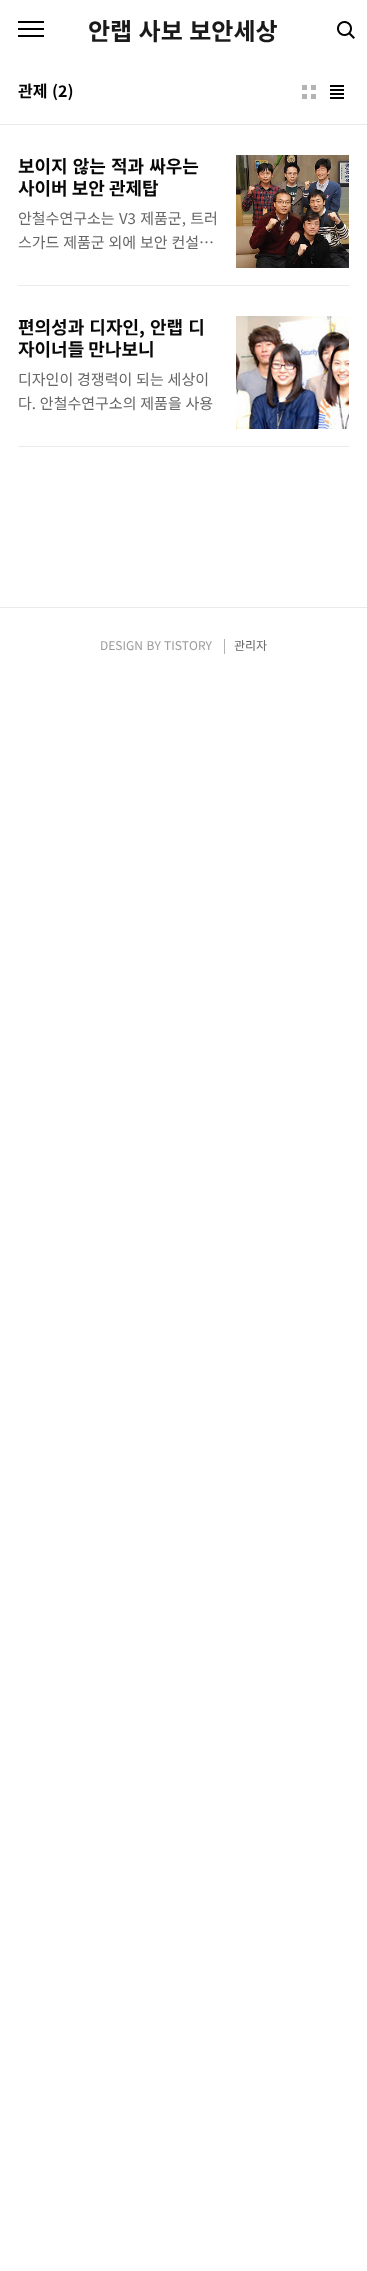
<?xml version="1.0" encoding="UTF-8"?>
<svg xmlns="http://www.w3.org/2000/svg" xmlns:xlink="http://www.w3.org/1999/xlink" width="367" height="2271">
  <style>*{font-kerning:none!important;font-variant-ligatures:none!important}</style>
  <rect width="100%" height="100%" fill="#ffffff" />
  <rect x="18" y="21" width="26" height="2" fill="#000000" />
  <rect x="18" y="28" width="26" height="2" fill="#000000" />
  <rect x="18" y="35" width="26" height="2" fill="#000000" />
  <image x="337" y="21" width="18" height="18" xlink:href="image1.png" />
  <rect y="124" width="367" height="1" fill="#ebebeb" />
  <image x="302" y="85" width="14" height="14" xlink:href="image2.png" />
  <image x="330" y="85" width="14" height="14" xlink:href="image3.png" />
  <rect x="18" y="285" width="331" height="1" fill="#ebebeb" />
  <image x="236" y="155" width="113" height="113" xlink:href="image4.png" />
  <rect x="18" y="446" width="331" height="1" fill="#ebebeb" />
  <image x="236" y="316" width="113" height="113" xlink:href="image5.png" />
  <rect y="607" width="367" height="1" fill="#ebebeb" />
  <rect x="224" y="639" width="1" height="15" fill="#b2b2b2" />
  <text x="88" y="40" word-spacing="1" style="font-family: Noto Sans KR; font-size: 24px; font-weight: bold; fill: #1a1a1a">안랩 사보 보안세상</text>
  <text x="18" y="97" style="font-family: Noto Sans KR; font-size: 16px; font-weight: bold; fill: #000000">관제</text>
  <text x="52" y="97" style="font-family: Noto Sans KR; font-size: 16px; font-weight: bold; fill: #000000">(2)</text>
  <text x="18" y="173" word-spacing="1" style="font-family: Noto Sans KR; font-size: 18px; font-weight: bold; fill: #080808">보이지 않는 적과 싸우는</text>
  <text x="18" y="195" style="font-family: Noto Sans KR; font-size: 18px; font-weight: bold; fill: #080808">사이버 보안 관제탑</text>
  <text x="18" y="224" word-spacing="1" style="font-family: Noto Sans KR; font-size: 15px; fill: #666666">안철수연구소는 V3 제품군, 트러</text>
  <text x="18" y="248" word-spacing="0.5" style="font-family: Noto Sans KR; font-size: 15px; fill: #666666">스가드 제품군 외에 보안 컨설…</text>
  <text x="18" y="334" word-spacing="1" style="font-family: Noto Sans KR; font-size: 18px; font-weight: bold; fill: #080808">편의성과 디자인, 안랩 디</text>
  <text x="18" y="356" style="font-family: Noto Sans KR; font-size: 18px; font-weight: bold; fill: #080808">자이너들 만나보니</text>
  <text x="18" y="385" word-spacing="0.5" style="font-family: Noto Sans KR; font-size: 15px; fill: #666666">디자인이 경쟁력이 되는 세상이</text>
  <text x="18" y="409" word-spacing="0.5" style="font-family: Noto Sans KR; font-size: 15px; fill: #666666">다. 안철수연구소의 제품을 사용</text>
  <text x="100" y="650" word-spacing="1" style="font-family: Noto Sans KR; font-size: 12px; fill: #9b9b9b">DESIGN BY</text>
  <text x="164" y="650" style="font-family: Noto Sans KR; font-size: 12px; fill: #9b9b9b">TISTORY</text>
  <text x="234" y="650" style="font-family: Noto Sans KR; font-size: 12px; fill: #666666">관리자</text>
</svg>
